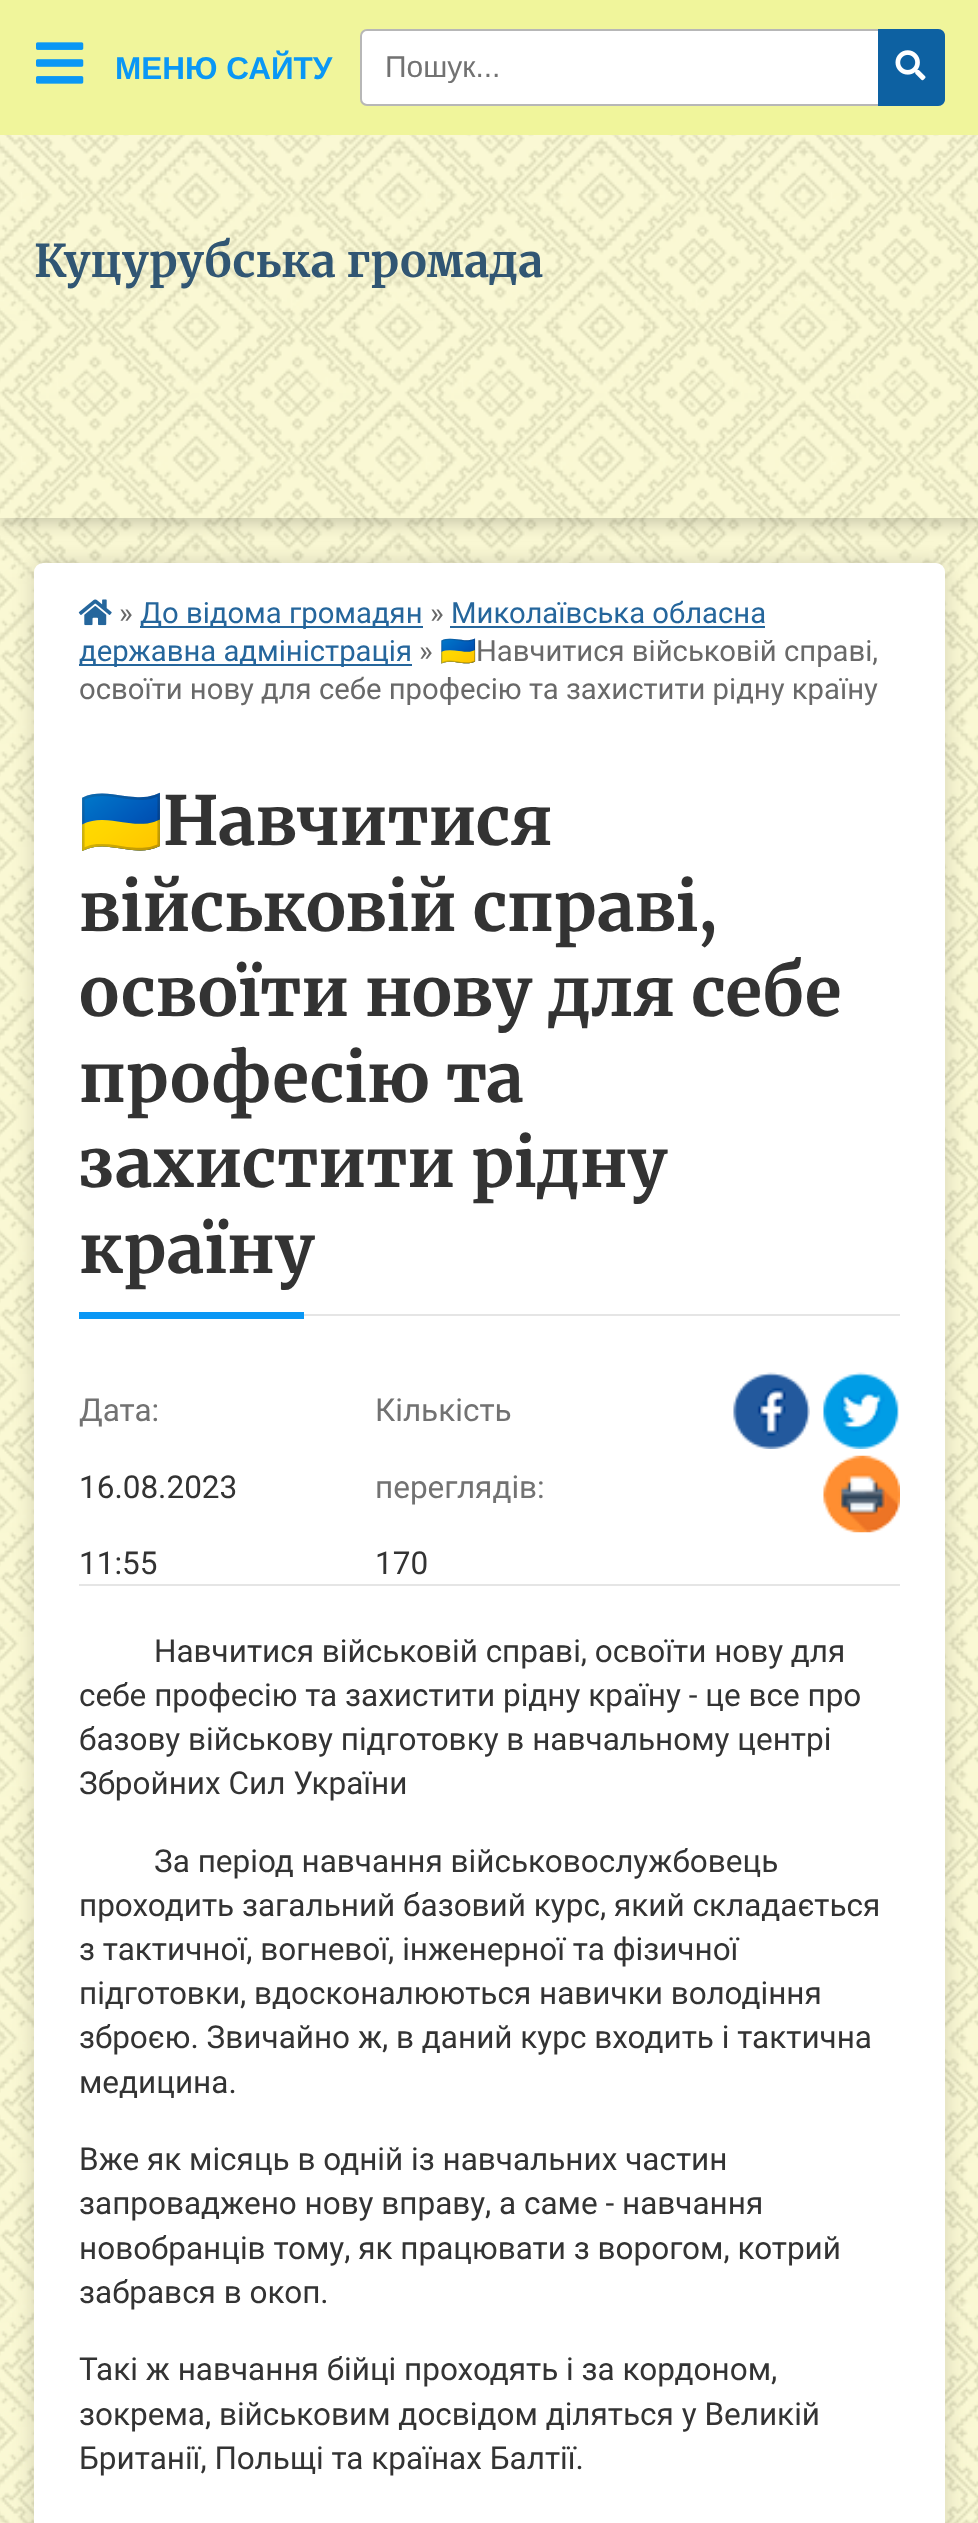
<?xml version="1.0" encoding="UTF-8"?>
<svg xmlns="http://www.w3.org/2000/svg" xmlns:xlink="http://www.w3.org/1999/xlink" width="978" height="2523">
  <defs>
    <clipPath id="clip1"><path d="M 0 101 h 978 v 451 h -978 z m 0 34 h 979 v 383 h -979 z" clip-rule="evenodd" /></clipPath>
    <clipPath id="clip2"><rect x="385" y="50" width="468" height="33" /></clipPath>
  </defs>
  <rect width="100%" height="100%" fill="#fbf9d1" />
  <image x="0" y="135" width="978" height="2388" xlink:href="image1.png" />
  <rect x="34" y="563" width="911" height="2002" rx="9" fill="#000000" fill-opacity="0.15" filter="blur(11px)" />
  <rect x="34" y="563" width="911" height="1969" rx="9" fill="#ffffff" />
  <g clip-path="url(#clip1)">
    <rect y="135" width="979" height="383" fill="#000000" fill-opacity="0.3" filter="blur(11px)" />
  </g>
  <rect width="978" height="135" fill="#f0f59b" />
  <image x="36" y="42" width="48" height="42" xlink:href="image2.png" />
  <image x="78" y="599" width="34" height="27" xlink:href="image3.png" />
  <rect x="140" y="626" width="283" height="2" fill="#25669c" />
  <rect x="450" y="626" width="315" height="2" fill="#25669c" />
  <rect x="79" y="664" width="333" height="2" fill="#25669c" />
  <rect x="304" y="1314" width="596" height="2" fill="#e5e5e5" />
  <rect x="79" y="1312" width="225" height="7" fill="#0a97f5" />
  <image x="733" y="1372" width="77" height="77" xlink:href="image4.png" />
  <image x="823" y="1372" width="76" height="77" xlink:href="image5.png" />
  <image x="823" y="1455" width="77" height="78" xlink:href="image6.png" />
  <rect x="79" y="1584" width="821" height="2" fill="#e5e5e5" />
  <rect x="361" y="30" width="583" height="75" rx="6" fill="#ffffff" stroke="#b7b7b7" stroke-width="2" />
  <path d="M 878 29 h 60 c 4 0 7 3 7 7 v 63 c 0 4 -3 7 -7 7 h -60 z" fill="#0d61a2" />
  <image x="895" y="50" width="31" height="31" xlink:href="image7.png" />
  <text x="115" y="79" style="font-family: Liberation Sans; font-size: 31.5px; font-weight: bold; fill: #0a97f5">МЕНЮ САЙТУ</text>
  <text x="119" y="623" style="font-family: Roboto; font-size: 29.25px; fill: #696969">»</text>
  <text x="140" y="623" style="font-family: Roboto; font-size: 29.25px; fill: #25669c">До відома громадян</text>
  <text x="430" y="623" style="font-family: Roboto; font-size: 29.25px; fill: #696969">»</text>
  <text x="451" y="623" style="font-family: Roboto; font-size: 29.25px; fill: #25669c">Миколаївська обласна</text>
  <text x="79" y="661" style="font-family: Roboto; font-size: 29.25px; fill: #25669c">державна адміністрація</text>
  <text x="419" y="661" style="font-family: Roboto; font-size: 29.25px; fill: #696969">»</text>
  <text x="440" y="661" style="font-family: Noto Color Emoji; font-size: 29.25px; fill: #696969">🇺🇦</text>
  <text x="476" y="661" style="font-family: Roboto; font-size: 29.25px; fill: #696969">Навчитися військовій справі,</text>
  <text x="79" y="699" style="font-family: Roboto; font-size: 29.25px; fill: #696969">освоїти нову для себе професію та захистити рідну країну</text>
  <text x="79" y="845" style="font-family: Noto Color Emoji; font-size: 67.5px; font-weight: bold; fill: #333333">🇺🇦</text>
  <text x="163" y="845" style="font-family: Merriweather; font-size: 67.5px; font-weight: 300; fill: #333333">Навчитися</text>
  <text x="79" y="931" style="font-family: Merriweather; font-size: 67.5px; font-weight: 300; fill: #333333">військовій справі,</text>
  <text x="79" y="1016" style="font-family: Merriweather; font-size: 67.5px; font-weight: 300; fill: #333333">освоїти нову для себе</text>
  <text x="79" y="1102" style="font-family: Merriweather; font-size: 67.5px; font-weight: 300; fill: #333333">професію та</text>
  <text x="79" y="1187" style="font-family: Merriweather; font-size: 67.5px; font-weight: 300; fill: #333333">захистити рідну</text>
  <text x="79" y="1273" style="font-family: Merriweather; font-size: 67.5px; font-weight: 300; fill: #333333">країну</text>
  <text x="79" y="1421" style="font-family: Roboto; font-size: 31.5px; fill: #727272">Дата:</text>
  <text x="79" y="1498" style="font-family: Roboto; font-size: 31.5px; fill: #333333">16.08.2023</text>
  <text x="79" y="1574" style="font-family: Roboto; font-size: 31.5px; fill: #333333">11:55</text>
  <text x="375" y="1421" style="font-family: Roboto; font-size: 31.5px; fill: #727272">Кількість</text>
  <text x="375" y="1498" style="font-family: Roboto; font-size: 31.5px; fill: #727272">переглядів:</text>
  <text x="375" y="1574" style="font-family: Roboto; font-size: 31.5px; fill: #333333">170</text>
  <text x="154" y="1662" style="font-family: Roboto; font-size: 31.5px; fill: #333333">Навчитися військовій справі, освоїти нову для</text>
  <text x="79" y="1706" style="font-family: Roboto; font-size: 31.5px; fill: #333333">себе професію та захистити рідну країну - це все про</text>
  <text x="79" y="1750" style="font-family: Roboto; font-size: 31.5px; fill: #333333">базову військову підготовку в навчальному центрі</text>
  <text x="79" y="1794" style="font-family: Roboto; font-size: 31.5px; fill: #333333">Збройних Сил України</text>
  <text x="154" y="1872" style="font-family: Roboto; font-size: 31.5px; fill: #333333">За період навчання військовослужбовець</text>
  <text x="79" y="1916" style="font-family: Roboto; font-size: 31.5px; fill: #333333">проходить загальний базовий курс, який складається</text>
  <text x="79" y="1960" style="font-family: Roboto; font-size: 31.5px; fill: #333333">з тактичної, вогневої, інженерної та фізичної</text>
  <text x="79" y="2004" style="font-family: Roboto; font-size: 31.5px; fill: #333333">підготовки, вдосконалюються навички володіння</text>
  <text x="79" y="2048" style="font-family: Roboto; font-size: 31.5px; fill: #333333">зброєю. Звичайно ж, в даний курс входить і тактична</text>
  <text x="79" y="2093" style="font-family: Roboto; font-size: 31.5px; fill: #333333">медицина.</text>
  <text x="79" y="2170" style="font-family: Roboto; font-size: 31.5px; fill: #333333">Вже як місяць в одній із навчальних частин</text>
  <text x="79" y="2214" style="font-family: Roboto; font-size: 31.5px; fill: #333333">запроваджено нову вправу, а саме - навчання</text>
  <text x="79" y="2259" style="font-family: Roboto; font-size: 31.5px; fill: #333333">новобранців тому, як працювати з ворогом, котрий</text>
  <text x="79" y="2303" style="font-family: Roboto; font-size: 31.5px; fill: #333333">забрався в окоп.</text>
  <text x="79" y="2380" style="font-family: Roboto; font-size: 31.5px; fill: #333333">Такі ж навчання бійці проходять і за кордоном,</text>
  <text x="79" y="2425" style="font-family: Roboto; font-size: 31.5px; fill: #333333">зокрема, військовим досвідом діляться у Великій</text>
  <text x="79" y="2469" style="font-family: Roboto; font-size: 31.5px; fill: #333333">Британії, Польщі та країнах Балтії.</text>
  <g clip-path="url(#clip2)">
    <text x="385" y="77" style="font-family: Liberation Sans; font-size: 30px; fill: #727272">Пошук...</text>
  </g>
  <text x="34" y="277" style="font-family: Merriweather; font-size: 45px; font-weight: 300; fill: #315673">Куцурубська громада</text>
</svg>
